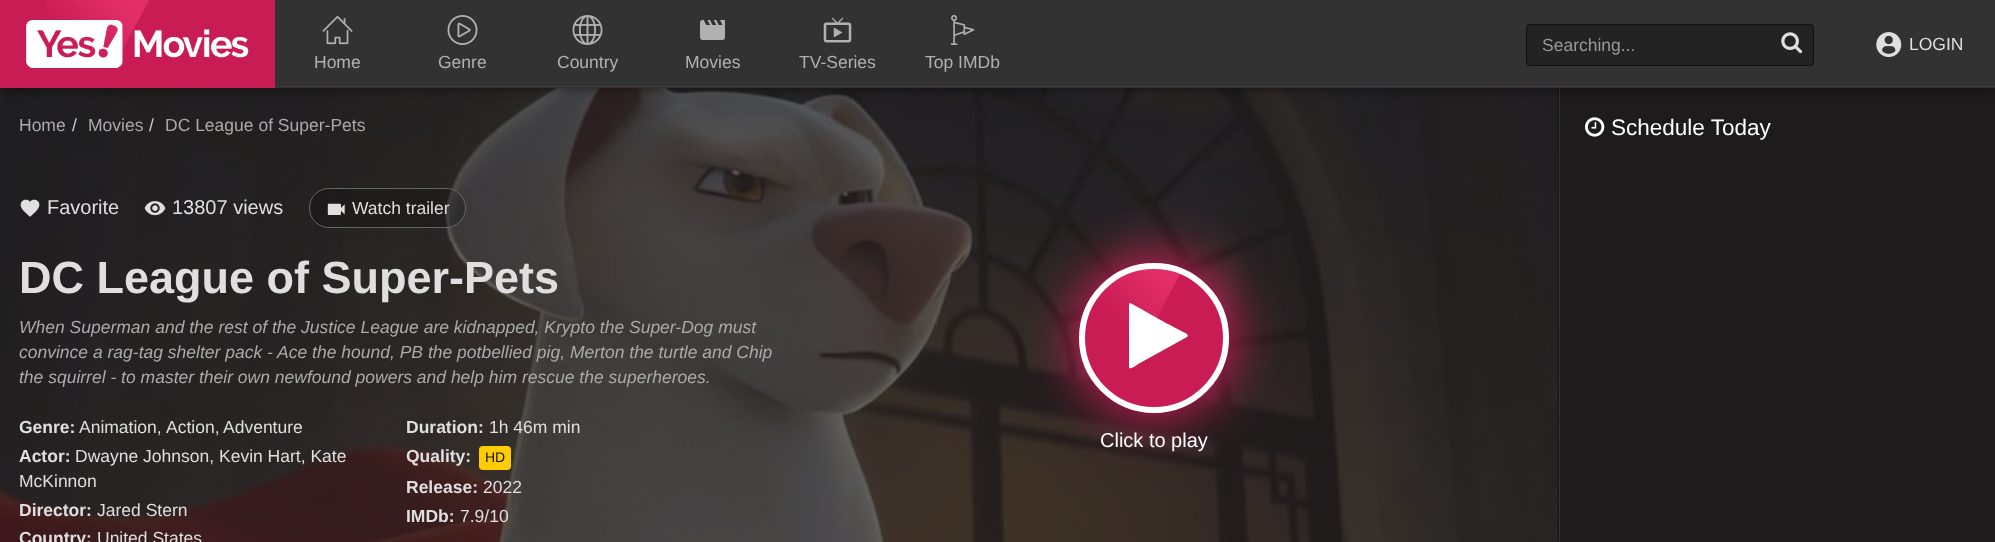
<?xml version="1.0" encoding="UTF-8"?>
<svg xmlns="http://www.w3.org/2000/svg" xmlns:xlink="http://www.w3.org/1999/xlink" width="1995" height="542">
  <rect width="100%" height="100%" fill="#232122" />
  <image x="0" y="88" width="1558" height="454" xlink:href="image11.png" />
  <rect x="1560" y="88" width="435" height="454" fill="#1d1b1c" />
  <rect x="1558" y="88" width="1" height="454" fill="#151515" />
  <rect x="1559" y="88" width="1" height="454" fill="#333333" />
  <rect width="1995" height="88" fill="#000000" fill-opacity="0.5" filter="blur(6px)" />
  <rect x="275" width="1720" height="88" fill="#323232" />
  <rect width="275" height="88" fill="#c91c55" />
  <image x="45" y="0" width="104" height="69" xlink:href="image1.png" />
  <image x="26" y="20" width="223" height="48" xlink:href="image2.png" />
  <rect x="1526" y="24" width="288" height="42" rx="4" fill="#232323" />
  <path d="M 1530 26 h 280 c 4 0 2 13 2 15 v 24 c 1 -1 1 -2 1 -3 v -34 c 0 -2 -1 -3 -3 -3 h -280 c -1 0 -2 1 -2 3 v 1 c 0 -2 1 -3 2 -3 z" fill="#202020" />
  <rect x="1526.5" y="24.5" width="287" height="41" rx="3.5" fill="none" stroke="#111111" />
  <image x="1781" y="32" width="22" height="22" xlink:href="image3.png" />
  <image x="1876" y="32" width="26" height="26" xlink:href="image4.png" />
  <image x="322" y="15" width="31" height="30" xlink:href="image5.png" />
  <image x="447" y="15" width="31" height="30" xlink:href="image6.png" />
  <image x="572" y="15" width="31" height="30" xlink:href="image7.png" />
  <image x="700" y="20" width="25" height="20" xlink:href="image8.png" />
  <image x="823" y="17" width="29" height="26" xlink:href="image9.png" />
  <image x="950" y="15" width="25" height="30" xlink:href="image10.png" />
  <rect x="275" y="86" width="1720" height="1" fill="#3c3c3c" />
  <image x="20" y="199" width="20" height="18" xlink:href="image12.png" />
  <image x="144" y="201" width="22" height="15" xlink:href="image13.png" />
  <rect x="309.5" y="188.5" width="156" height="39" rx="19.5" fill="#000000" fill-opacity="0.2" stroke="#666666" />
  <image x="327" y="203" width="18" height="12" xlink:href="image14.png" />
  <rect x="479" y="446" width="32" height="24" rx="4" fill="#ffcc00" />
  <rect x="1073" y="256" width="162" height="163" rx="81" fill="#c71c54" filter="blur(25px)" />
  <circle cx="1154" cy="338" r="75" fill="#c91c55" />
  <image x="1092" y="268" width="91" height="71" xlink:href="image15.png" />
  <circle cx="1154" cy="338" r="72" fill="none" stroke="#ffffff" stroke-width="6" />
  <path d="M 1187 337 l -47 26 c -1 0 -9 7 -11 5 v -64 l 1 -1 c 1 0 34 19 38 21 l 19 10 l 1 2 z" fill="#ffffff" />
  <image x="1585" y="117" width="20" height="20" xlink:href="image16.png" />
  <text x="1542" y="51" style="font-family: Liberation Sans; font-size: 17.5px; fill: #999999">Searching...</text>
  <text x="1909" y="50" style="font-family: Liberation Sans; font-size: 17.5px; fill: #dfdfdf">LOGIN</text>
  <text x="314" y="68" style="font-family: Liberation Sans; font-size: 17.5px; fill: #b1b1b1">Home</text>
  <text x="438" y="68" style="font-family: Liberation Sans; font-size: 17.5px; fill: #b1b1b1">Genre</text>
  <text x="557" y="68" style="font-family: Liberation Sans; font-size: 17.5px; fill: #b1b1b1">Country</text>
  <text x="685" y="68" style="font-family: Liberation Sans; font-size: 17.5px; fill: #b1b1b1">Movies</text>
  <text x="799" y="68" style="font-family: Liberation Sans; font-size: 17.5px; fill: #b1b1b1">TV-Series</text>
  <text x="925" y="68" style="font-family: Liberation Sans; font-size: 17.5px; fill: #b1b1b1">Top IMDb</text>
  <text x="19" y="131" style="font-family: Liberation Sans; font-size: 17.5px; fill: #aaaaaa">Home</text>
  <text x="72" y="131" style="font-family: Liberation Sans; font-size: 17.5px; fill: #cccccc">/</text>
  <text x="88" y="131" style="font-family: Liberation Sans; font-size: 17.5px; fill: #aaaaaa">Movies</text>
  <text x="149" y="131" style="font-family: Liberation Sans; font-size: 17.5px; fill: #cccccc">/</text>
  <text x="165" y="131" style="font-family: Liberation Sans; font-size: 17.5px; fill: #aaaaaa">DC League of Super-Pets</text>
  <text x="47" y="214" style="font-family: Liberation Sans; font-size: 20px; fill: #dfdfdf">Favorite</text>
  <text x="172" y="214" style="font-family: Liberation Sans; font-size: 20px; fill: #dfdfdf">13807 views</text>
  <text x="352" y="214" style="font-family: Liberation Sans; font-size: 17.5px; fill: #dfdfdf">Watch trailer</text>
  <text x="19" y="293" style="font-family: Liberation Sans; font-size: 45px; font-weight: bold; fill: #dfdfdf">DC League of Super-Pets</text>
  <text x="19" y="333" style="font-family: Liberation Sans; font-size: 17.5px; font-style: italic; fill: #aaaaaa">When Superman and the rest of the Justice League are kidnapped, Krypto the Super-Dog must</text>
  <text x="19" y="358" style="font-family: Liberation Sans; font-size: 17.5px; font-style: italic; fill: #aaaaaa">convince a rag-tag shelter pack - Ace the hound, PB the potbellied pig, Merton the turtle and Chip</text>
  <text x="19" y="383" style="font-family: Liberation Sans; font-size: 17.5px; font-style: italic; fill: #aaaaaa">the squirrel - to master their own newfound powers and help him rescue the superheroes.</text>
  <text x="19" y="433" style="font-family: Liberation Sans; font-size: 17.5px; font-weight: bold; fill: #dfdfdf">Genre:</text>
  <text x="79" y="433" style="font-family: Liberation Sans; font-size: 17.5px; fill: #dfdfdf">Animation,</text>
  <text x="166" y="433" style="font-family: Liberation Sans; font-size: 17.5px; fill: #dfdfdf">Action,</text>
  <text x="223" y="433" style="font-family: Liberation Sans; font-size: 17.5px; fill: #dfdfdf">Adventure</text>
  <text x="19" y="462" style="font-family: Liberation Sans; font-size: 17.5px; font-weight: bold; fill: #dfdfdf">Actor:</text>
  <text x="75" y="462" style="font-family: Liberation Sans; font-size: 17.5px; fill: #dfdfdf">Dwayne Johnson, Kevin Hart, Kate</text>
  <text x="19" y="487" style="font-family: Liberation Sans; font-size: 17.5px; fill: #dfdfdf">McKinnon</text>
  <text x="19" y="516" style="font-family: Liberation Sans; font-size: 17.5px; font-weight: bold; fill: #dfdfdf">Director:</text>
  <text x="97" y="516" style="font-family: Liberation Sans; font-size: 17.5px; fill: #dfdfdf">Jared Stern</text>
  <text x="19" y="544" style="font-family: Liberation Sans; font-size: 17.5px; font-weight: bold; fill: #dfdfdf">Country:</text>
  <text x="97" y="544" style="font-family: Liberation Sans; font-size: 17.5px; fill: #dfdfdf">United States</text>
  <text x="406" y="433" style="font-family: Liberation Sans; font-size: 17.5px; font-weight: bold; fill: #dfdfdf">Duration:</text>
  <text x="489" y="433" style="font-family: Liberation Sans; font-size: 17.5px; fill: #dfdfdf">1h 46m min</text>
  <text x="406" y="462" style="font-family: Liberation Sans; font-size: 17.5px; font-weight: bold; fill: #dfdfdf">Quality:</text>
  <text x="485" y="462" style="font-family: Liberation Sans; font-size: 14px; fill: #111111">HD</text>
  <text x="406" y="493" style="font-family: Liberation Sans; font-size: 17.5px; font-weight: bold; fill: #dfdfdf">Release:</text>
  <text x="483" y="493" style="font-family: Liberation Sans; font-size: 17.5px; fill: #dfdfdf">2022</text>
  <text x="406" y="522" style="font-family: Liberation Sans; font-size: 17.5px; font-weight: bold; fill: #dfdfdf">IMDb:</text>
  <text x="460" y="522" style="font-family: Liberation Sans; font-size: 17.5px; fill: #dfdfdf">7.9/10</text>
  <text x="1100" y="447" style="font-family: Liberation Sans; font-size: 20px; fill: #ffffff">Click to play</text>
  <text x="1611" y="135" style="font-family: Liberation Sans; font-size: 22.5px; fill: #ffffff">Schedule Today</text>
</svg>
